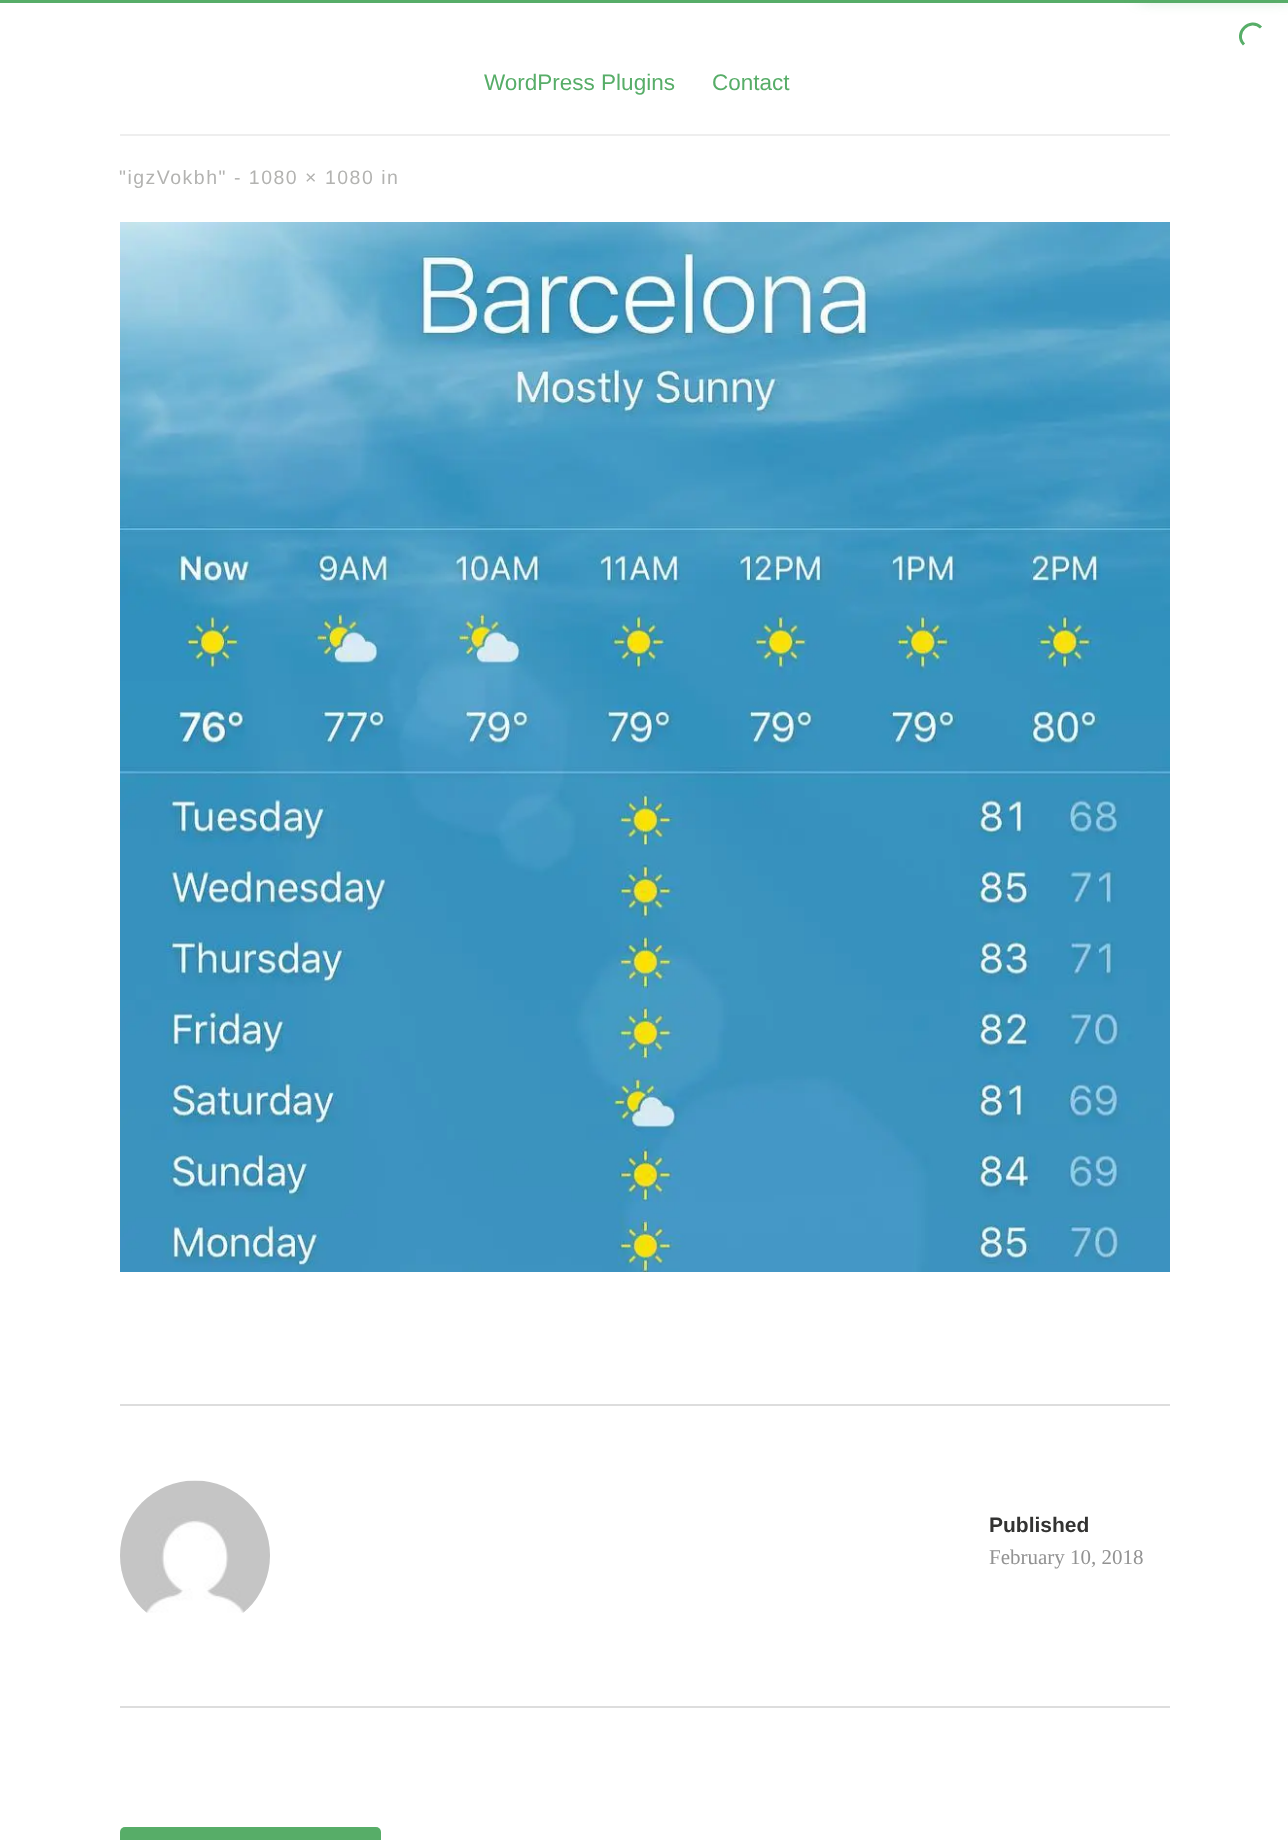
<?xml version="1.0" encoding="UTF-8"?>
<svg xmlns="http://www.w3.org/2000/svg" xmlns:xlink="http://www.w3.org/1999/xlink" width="1288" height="1840">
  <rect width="100%" height="100%" fill="#ffffff" />
  <rect width="1288" height="3" fill="#57ad68" />
  <rect x="1139" y="-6" width="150" height="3" fill="#57ad68" filter="blur(7.5px)" />
  <path d="M 1244 44.5 c -11 -11 6 -28 17 -17" fill="none" stroke="#57ad68" stroke-width="3" />
  <rect x="120" y="134" width="1050" height="2" fill="#eeeeee" />
  <image x="120" y="222" width="1050" height="1050" xlink:href="image1.png" />
  <rect x="120" y="1404" width="1050" height="2" fill="#dddddd" />
  <rect x="120" y="1706" width="1050" height="2" fill="#dddddd" />
  <image x="120" y="1480" width="150" height="133" xlink:href="image2.png" />
  <rect x="120" y="1827" width="261" height="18" rx="5" fill="#57ad68" />
  <text x="484" y="90" style="font-family: Liberation Sans; font-size: 22.5px; fill: #57ad68">WordPress Plugins</text>
  <text x="712" y="90" style="font-family: Liberation Sans; font-size: 22.5px; fill: #57ad68">Contact</text>
  <text x="119" y="184" style="font-family: Liberation Sans; font-size: 19.5px; letter-spacing: 1.5px; fill: #b3b3b1">"igzVokbh" - 1080 × 1080 in</text>
  <text x="989" y="1532" style="font-family: Liberation Sans; font-size: 21px; font-weight: bold; fill: #333332">Published</text>
  <text x="989" y="1564" style="font-family: Liberation Serif; font-size: 21px; fill: #929292">February 10, 2018</text>
</svg>
